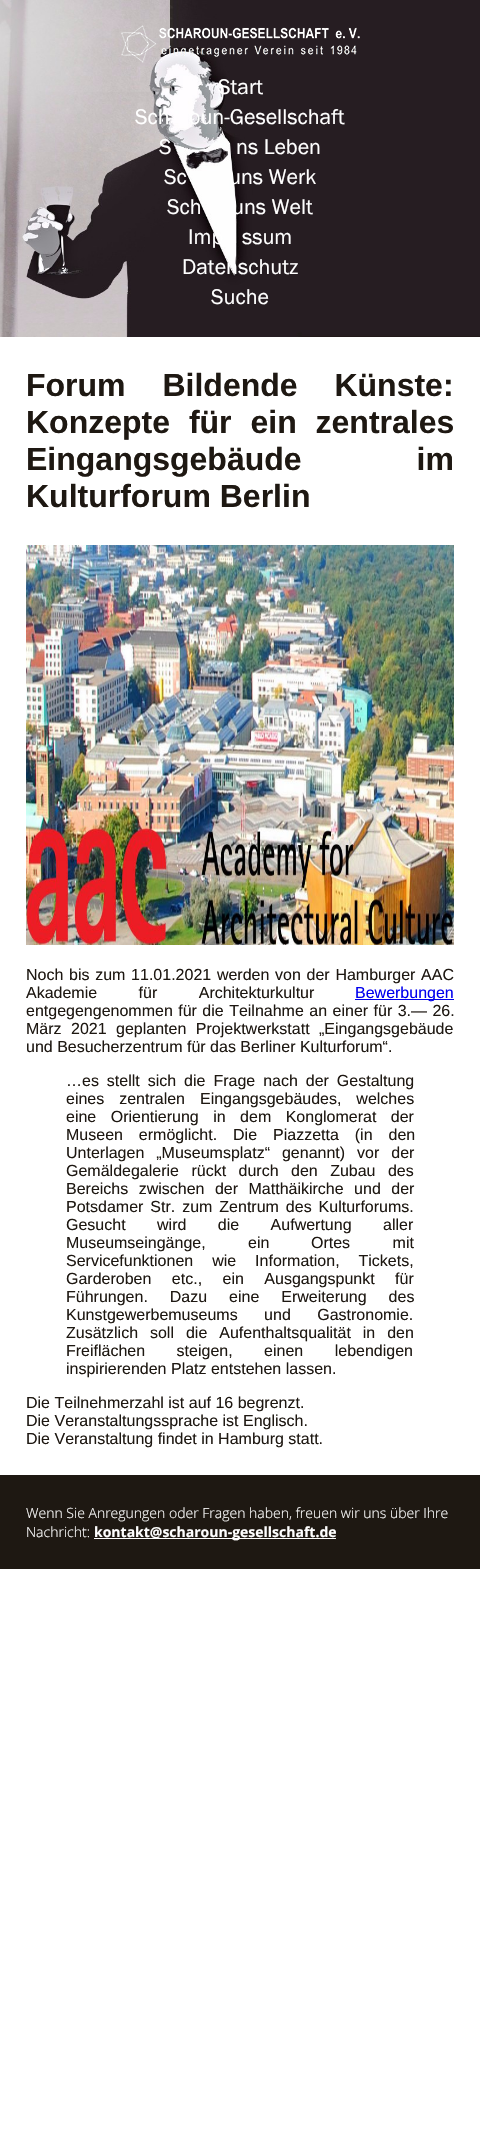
void draw(SkCanvas* c) {
SkPaint p;
p.setAntiAlias(true);
auto F=[&](const char* family, int weight, float size, bool italic = false){SkFontStyle style(weight, SkFontStyle::kNormal_Width,italic ? SkFontStyle::kItalic_Slant : SkFontStyle::kUpright_Slant);SkFont result(fontMgr->matchFamilyStyle(family, style), size);result.setSubpixel(true);return result;};
auto T=[&](const char* s, float x, float y, const SkFont& font){c->drawString(s, x, y, font, p);};
auto L=[&](const char* s, float x, float y, const SkFont& font, const SkPaint& ink, float letter, float word){std::vector<SkGlyphID> glyphs(font.countText(s, strlen(s), SkTextEncoding::kUTF8));std::vector<float> xs(glyphs.size());font.textToGlyphs(s, strlen(s), SkTextEncoding::kUTF8, glyphs);font.getXPos(glyphs, xs, x);float extra = 0;for (size_t i = 0; i < glyphs.size(); i++) {xs[i] += extra;extra += letter + word * (glyphs[i] == font.unicharToGlyph(' '));}c->drawTextBlob(SkTextBlob::MakeFromPosHGlyphs(glyphs, xs, y, font), 0, 0, ink);};
auto R=[&](float x, float y, float w, float h){c->drawRect(SkRect::MakeXYWH(x, y, w, h), p);};
auto I=[&](const char* path, float x, float y, float w, float h){auto image = SkImages::DeferredFromEncodedData(SkData::MakeFromFileName(path));c->drawImageRect(image, SkRect::MakeXYWH(x, y, w, h), SkSamplingOptions());};
c->clear(0xffffffff);
I("1.png",0,0,480,337);
I("2.png",121,25,239,38);
auto f1 = F("Franklin Gothic",400,22);
p.setColor(0xffffffff);
T("Start",218,94,f1);
T("Sch",135,124,f1);
T("oun-Gesellschaft",189,124,f1);
T("S",159,154,f1);
T("ns Leben",236,154,f1);
T("Sc",164,184,f1);
T("uns Werk",229,184,f1);
T("Sch",167,214,f1);
T("uns Welt",232,214,f1);
T("Imp",188,244,f1);
T("ssum",242,244,f1);
T("Datenschutz",182,274,f1);
T("Suche",211,304,f1);
auto f2 = F("Liberation Sans",700,32);
p.setColor(0xff1e1812);
L("Forum Bildende Künste:",26,396,f2,p,0,28);
L("Konzepte für ein zentrales",26,433,f2,p,0,10);
L("Eingangsgebäude im",26,470,f2,p,0,106);
T("Kulturforum Berlin",26,507,f2);
I("3.png",26,545,428,400);
auto f3 = F("Liberation Sans",400,16);
L("Noch bis zum 11.01.2021 werden von der Hamburger AAC",26,980,f3,p,0,1.25);
L("Akademie für Architekturkultur",26,998,f3,p,0,37);
p.setColor(0xff0000ee);
R(355,999,99,1);
T("Bewerbungen",355,998,f3);
p.setColor(0xff1e1812);
L("entgegengenommen für die Teilnahme an einer für 3.— 26.",26,1016,f3,p,0,1);
L("März 2021 geplanten Projektwerkstatt „Eingangsgebäude",26,1034,f3,p,0,5);
T("und Besucherzentrum für das Berliner Kulturforum“.",26,1052,f3);
L("…es stellt sich die Frage nach der Gestaltung",66,1086,f3,p,0,3.5);
L("eines zentralen Eingangsgebäudes, welches",66,1104,f3,p,0,10.5);
L("eine Orientierung in dem Konglomerat der",66,1122,f3,p,0,10);
L("Museen ermöglicht. Die Piazzetta (in den",66,1140,f3,p,0,11.5);
L("Unterlagen „Museumsplatz“ genannt) vor der",66,1158,f3,p,0,7.5);
L("Gemäldegalerie rückt durch den Zubau des",66,1176,f3,p,0,8);
L("Bereichs zwischen der Matthäikirche und der",66,1194,f3,p,0,6);
L("Potsdamer Str. zum Zentrum des Kulturforums.",66,1212,f3,p,0,2.5);
L("Gesucht wird die Aufwertung aller",66,1230,f3,p,0,27);
L("Museumseingänge, ein",66,1248,f3,p,0,38);
L("Ortes mit",311,1248,f3,p,0,38);
L("Servicefunktionen wie Information, Tickets,",66,1266,f3,p,0,14.5);
L("Garderoben etc., ein Ausgangspunkt für",66,1284,f3,p,0,16);
L("Führungen. Dazu eine Erweiterung des",66,1302,f3,p,0,17.5);
L("Kunstgewerbemuseums und Gastronomie.",66,1320,f3,p,0,22);
L("Zusätzlich soll die Aufenthaltsqualität in den",66,1338,f3,p,0,7.5);
L("Freiflächen steigen, einen lebendigen",66,1356,f3,p,0,27);
T("inspirierenden Platz entstehen lassen.",66,1374,f3);
T("Die Teilnehmerzahl ist auf 16 begrenzt.",26,1408,f3);
T("Die Veranstaltungssprache ist Englisch.",26,1426,f3);
T("Die Veranstaltung findet in Hamburg statt.",26,1444,f3);
R(0,1475,480,94);
auto f4 = F("Open Sans",300,14);
p.setColor(0xffffffff);
T("Wenn Sie Anregungen oder Fragen haben, freuen wir uns über Ihre",26,1518,f4);
T("Nachricht:",26,1537,f4);
R(94,1538,242,1);
auto f5 = F("Open Sans",700,14);
T("kontakt@scharoun-gesellschaft.de",94,1537,f5);
}
